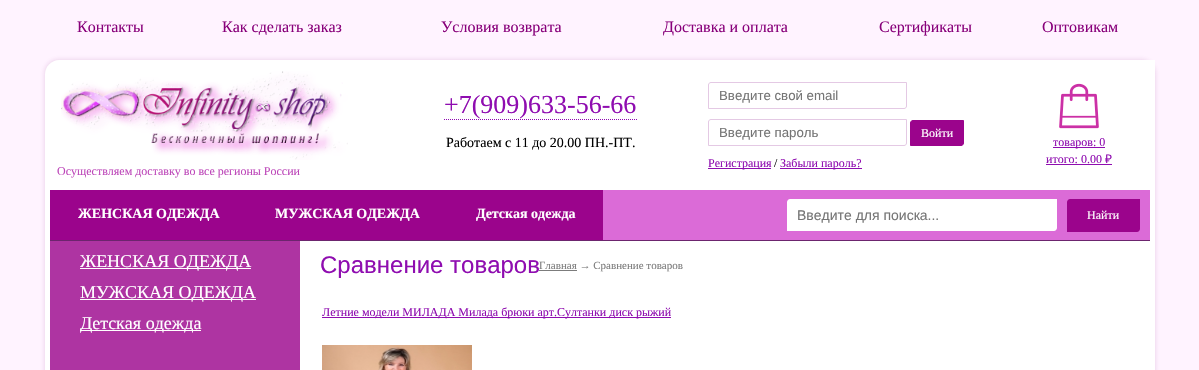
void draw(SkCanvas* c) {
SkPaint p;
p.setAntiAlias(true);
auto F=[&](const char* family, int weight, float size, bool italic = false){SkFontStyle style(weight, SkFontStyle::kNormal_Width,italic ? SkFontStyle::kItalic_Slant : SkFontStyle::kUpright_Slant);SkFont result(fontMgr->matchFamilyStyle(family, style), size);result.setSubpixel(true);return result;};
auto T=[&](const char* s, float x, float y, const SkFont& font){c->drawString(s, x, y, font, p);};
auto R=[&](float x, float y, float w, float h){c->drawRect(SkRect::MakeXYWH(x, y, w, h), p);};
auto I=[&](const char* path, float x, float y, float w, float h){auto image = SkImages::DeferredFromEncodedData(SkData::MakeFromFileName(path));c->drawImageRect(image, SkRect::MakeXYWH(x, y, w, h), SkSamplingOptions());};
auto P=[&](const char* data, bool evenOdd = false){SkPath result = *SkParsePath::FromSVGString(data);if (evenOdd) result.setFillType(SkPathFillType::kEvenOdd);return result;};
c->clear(0xfffff3ff);
auto f1 = F("Liberation Serif",400,16);
p.setColor(0xff88007a);
T("Контакты",77,32,f1);
T("Как сделать заказ",222,32,f1);
T("Условия возврата",441,32,f1);
T("Доставка и оплата",663,32,f1);
T("Сертификаты",879,32,f1);
T("Оптовикам",1042,32,f1);
p.setColor(0x307d1a77);
p.setMaskFilter(SkMaskFilter::MakeBlur(kNormal_SkBlurStyle, 2.5));
c->drawRoundRect(SkRect::MakeXYWH(45,60,1110,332),14,14,p);
p.setMaskFilter(nullptr);
p.setColor(0xffffffff);
c->drawPath(P("M59 60h1096v310c0 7.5-6.5 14-14 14h-1096v-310c0-7.5 6.5-14 14-14z"),p);
auto f2 = F("Liberation Serif",400,26);
p.setColor(0xff8f0db0);
T("+7(909)633-56-66",444,113,f2);
p.setStroke(true);
p.setStrokeWidth(1);
p.setPathEffect(SkDashPathEffect::Make({{1,1}}, 0));
c->drawPath(P("M444 119.5h193"),p);
p.setPathEffect(nullptr);
auto f3 = F("Liberation Serif",400,14);
p.setStroke(false);
p.setColor(0xff000000);
T("Работаем с 11 до 20.00 ПН.-ПТ.",446,147,f3);
p.setStroke(true);
p.setColor(0xffe4c9e4);
c->drawPath(P("M711 82.5h195.5v23.5c0 1.5-1 2.5-2.5 2.5h-195.5v-23.5c0-1.5 1-2.5 2.5-2.5z"),p);
auto f4 = F("Liberation Sans",400,13.25);
p.setStroke(false);
p.setColor(0xff757575);
T("Введите свой email",719,100,f4);
p.setStroke(true);
p.setColor(0xffe4c9e4);
c->drawPath(P("M711 119.5h195.5v23.5c0 1.5-1 2.5-2.5 2.5h-195.5v-23.5c0-1.5 1-2.5 2.5-2.5z"),p);
p.setStroke(false);
p.setColor(0xff757575);
T("Введите пароль",719,137,f4);
p.setColor(0xff9b048c);
c->drawPath(P("M913 120.5h50.5v22.5c0 1.5-1 2.5-2.5 2.5h-50.5v-22.5c0-1.5 1-2.5 2.5-2.5z"),p);
p.setStroke(true);
c->drawPath(P("M913 120.5h50.5v22.5c0 1.5-1 2.5-2.5 2.5h-50.5v-22.5c0-1.5 1-2.5 2.5-2.5z"),p);
auto f5 = F("Liberation Serif",400,12);
p.setStroke(false);
p.setColor(0xffffffff);
T("Войти",921,137,f5);
p.setColor(0xff8f0db0);
R(708,168,63,1);
T("Регистрация",708,167,f5);
p.setColor(0xff000000);
T("/",774,167,f5);
p.setColor(0xff8f0db0);
R(780,168,82,1);
T("Забыли пароль?",780,167,f5);
I("1.png",1059,83,40,46);
R(1053,147,52,1);
T("товаров: 0",1053,146,f5);
T("итого: 0.00",1046,163,f5);
R(1046,164,66,1);
auto f6 = F("Noto Sans",400,12);
T("₽",1105,163,f6);
I("2.png",61,71,287,89);
p.setColor(0xffbd47b9);
T("Осуществляем доставку во все регионы России",57,175,f5);
p.setColor(0xffdb6bd7);
R(603,190,547,50);
p.setColor(0xff9b048c);
R(50,190,553,50);
auto f7 = F("Liberation Serif",700,14);
p.setColor(0xffffffff);
T("ЖЕНСКАЯ ОДЕЖДА",78,218,f7);
T("МУЖСКАЯ ОДЕЖДА",275,218,f7);
T("Детская одежда",476,218,f7);
c->drawPath(P("M790 199h267v29c0 1.5-1.5 3-3 3h-267v-29c0-1.5 1.5-3 3-3z"),p);
auto f8 = F("Liberation Sans",400,14);
p.setColor(0xff757575);
T("Введите для поиска...",797,220,f8);
p.setColor(0xff9b048c);
c->drawPath(P("M1070 199h70v30c0 1.5-1.5 3-3 3h-70v-30c0-1.5 1.5-3 3-3z"),p);
p.setColor(0xffffffff);
T("Найти",1087,219,f5);
p.setColor(0xffae34a2);
R(50,241,250,129);
p.setColor(0xff6c256e);
R(50,240,1100,1);
p.setColor(0xffffffff);
R(80,268,171,1);
auto f9 = F("Liberation Serif",400,18);
T("ЖЕНСКАЯ ОДЕЖДА",80,267,f9);
R(80,299,176,1);
T("МУЖСКАЯ ОДЕЖДА",80,298,f9);
R(80,330,121,1);
T("Детская одежда",80,329,f9);
auto f10 = F("Liberation Sans",400,24);
p.setColor(0xff8f0db0);
T("Сравнение товаров",320,273,f10);
p.setColor(0xff7c7c7c);
R(539,270,38,1);
auto f11 = F("Liberation Serif",400,11);
T("Главная → Сравнение товаров",539,269,f11);
p.setColor(0xff8f0db0);
R(322,317,349,1);
T("Летние модели МИЛАДА Милада брюки арт.Султанки диск рыжий",322,316,f5);
I("3.png",322,345,150,25);
}
